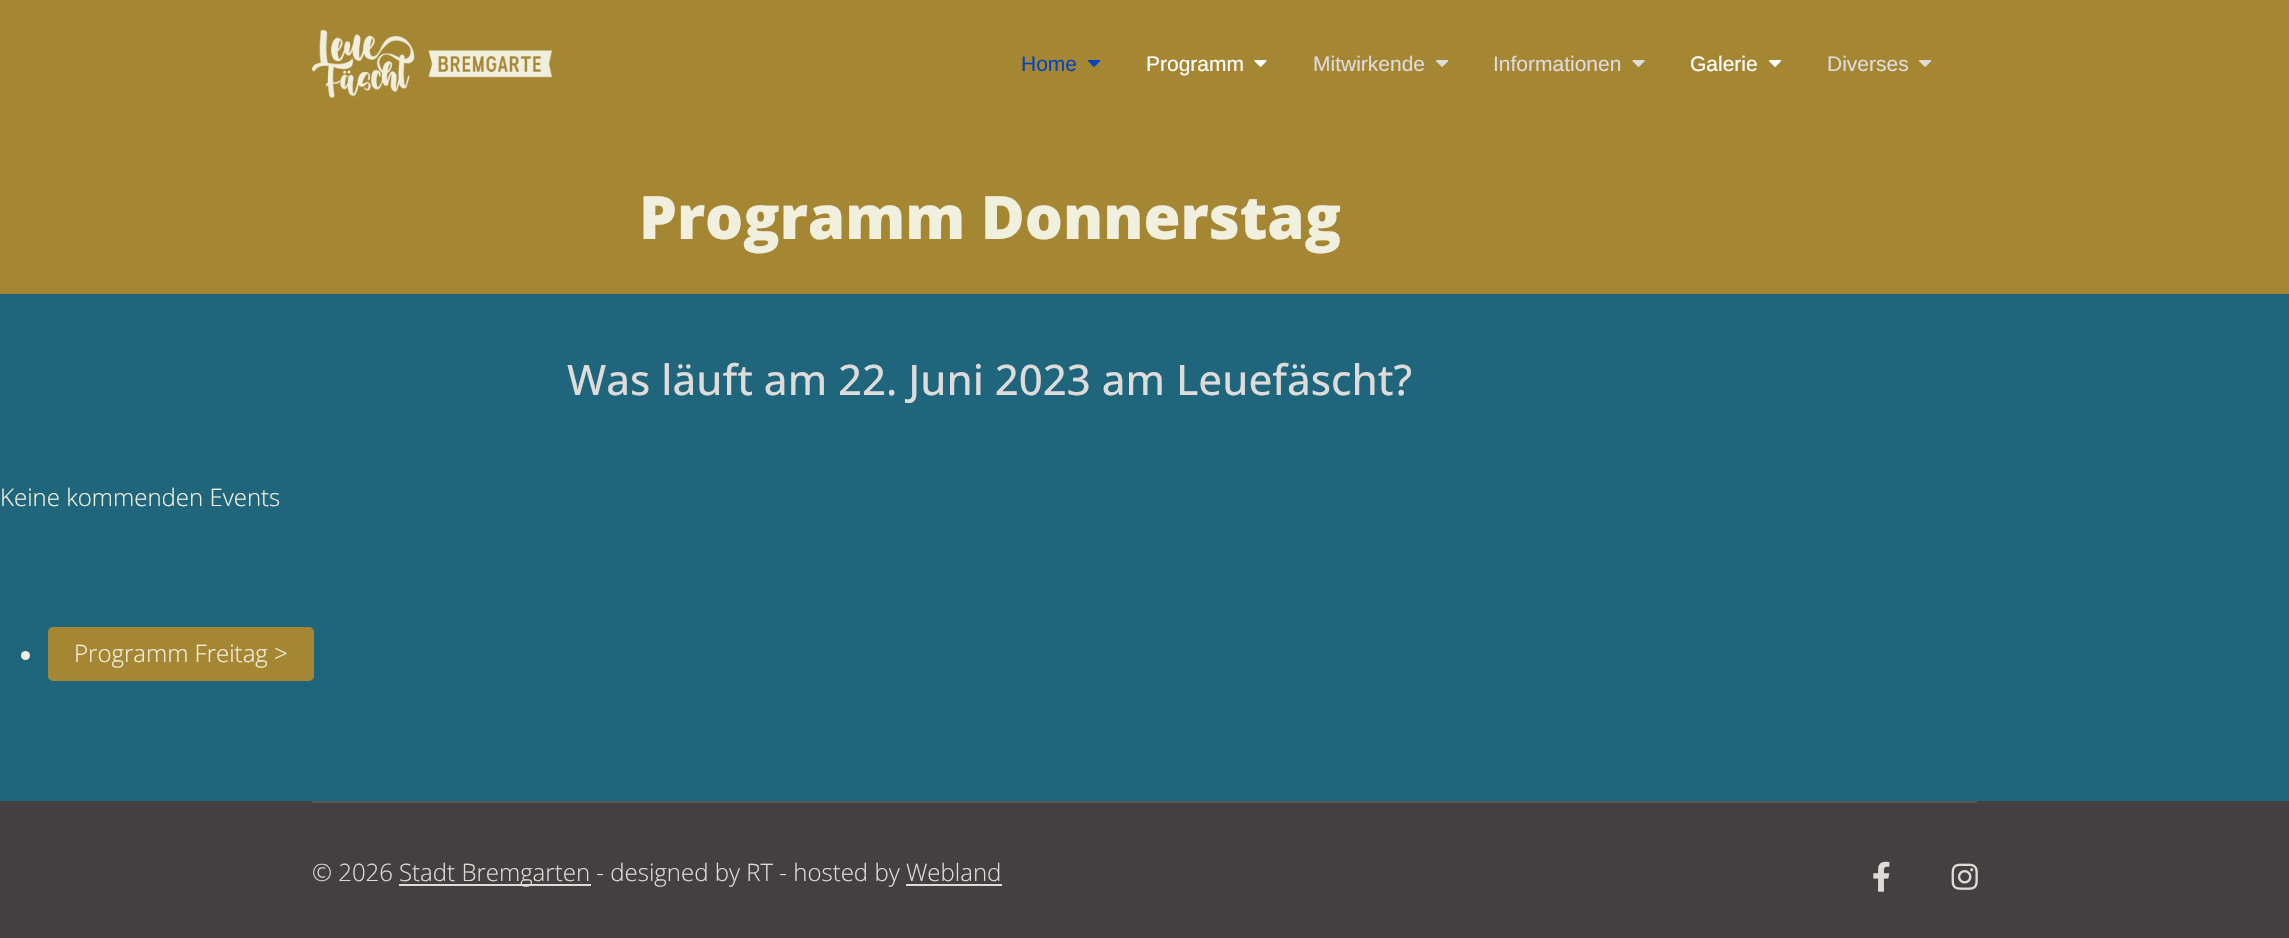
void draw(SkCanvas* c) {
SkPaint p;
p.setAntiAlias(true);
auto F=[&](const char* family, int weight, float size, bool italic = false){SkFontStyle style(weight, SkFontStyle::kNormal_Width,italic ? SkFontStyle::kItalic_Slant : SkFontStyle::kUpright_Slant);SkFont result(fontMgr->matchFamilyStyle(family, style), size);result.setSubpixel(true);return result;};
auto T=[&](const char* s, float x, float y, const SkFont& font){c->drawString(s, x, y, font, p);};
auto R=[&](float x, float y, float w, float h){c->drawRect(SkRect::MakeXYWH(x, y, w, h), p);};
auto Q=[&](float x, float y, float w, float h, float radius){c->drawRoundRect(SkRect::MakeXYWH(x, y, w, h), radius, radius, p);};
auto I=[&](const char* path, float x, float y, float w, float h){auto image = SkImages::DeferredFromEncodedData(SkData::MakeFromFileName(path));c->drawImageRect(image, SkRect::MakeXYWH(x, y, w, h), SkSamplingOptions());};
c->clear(0xff1f657b);
p.setColor(0xffa58633);
R(0,0,2289,294);
I("1.png",312,30,240,68);
auto f1 = F("Liberation Sans",400,21);
p.setColor(0xff0345bf);
T("Home",1021,71,f1);
I("2.png",1088,60,13,7);
p.setColor(0xffffffff);
T("Programm",1146,71,f1);
I("3.png",1254,60,13,7);
p.setColor(0xffdedbdb);
T("Mitwirkende",1313,71,f1);
I("4.png",1436,60,13,7);
T("Informationen",1493,71,f1);
I("5.png",1632,60,13,7);
p.setColor(0xffffffff);
T("Galerie",1690,71,f1);
I("6.png",1769,60,13,7);
p.setColor(0xffdedbdb);
T("Diverses",1827,71,f1);
I("4.png",1919,60,13,7);
auto f2 = F("Open Sans",800,60);
p.setColor(0xfff1efdd);
T("Programm Donnerstag",639,239,f2);
auto f3 = F("Open Sans",500,42);
p.setColor(0xffdedbdb);
T("Was läuft am 22. Juni 2023 am Leuefäscht?",567,395,f3);
auto f4 = F("Open Sans",300,24);
p.setColor(0xfff1efdd);
T("Keine kommenden Events",0,506,f4);
c->drawCircle(25.5,655.5,4.5,p);
p.setColor(0xffa58633);
Q(48,627,266,54,5);
p.setColor(0xfff1efdd);
T("Programm Freitag >",74,662,f4);
p.setColor(0xff424040);
R(0,801,2289,137);
p.setColor(0xff5a5858);
R(312,801,1665,2);
p.setColor(0xffdedbdb);
T("© 2026",312,881,f4);
R(399,884,192,2);
T("Stadt Bremgarten - designed by RT - hosted by Webland",399,881,f4);
R(906,884,96,2);
I("7.png",1873,861,17,31);
I("8.png",1951,863,27,27);
}
